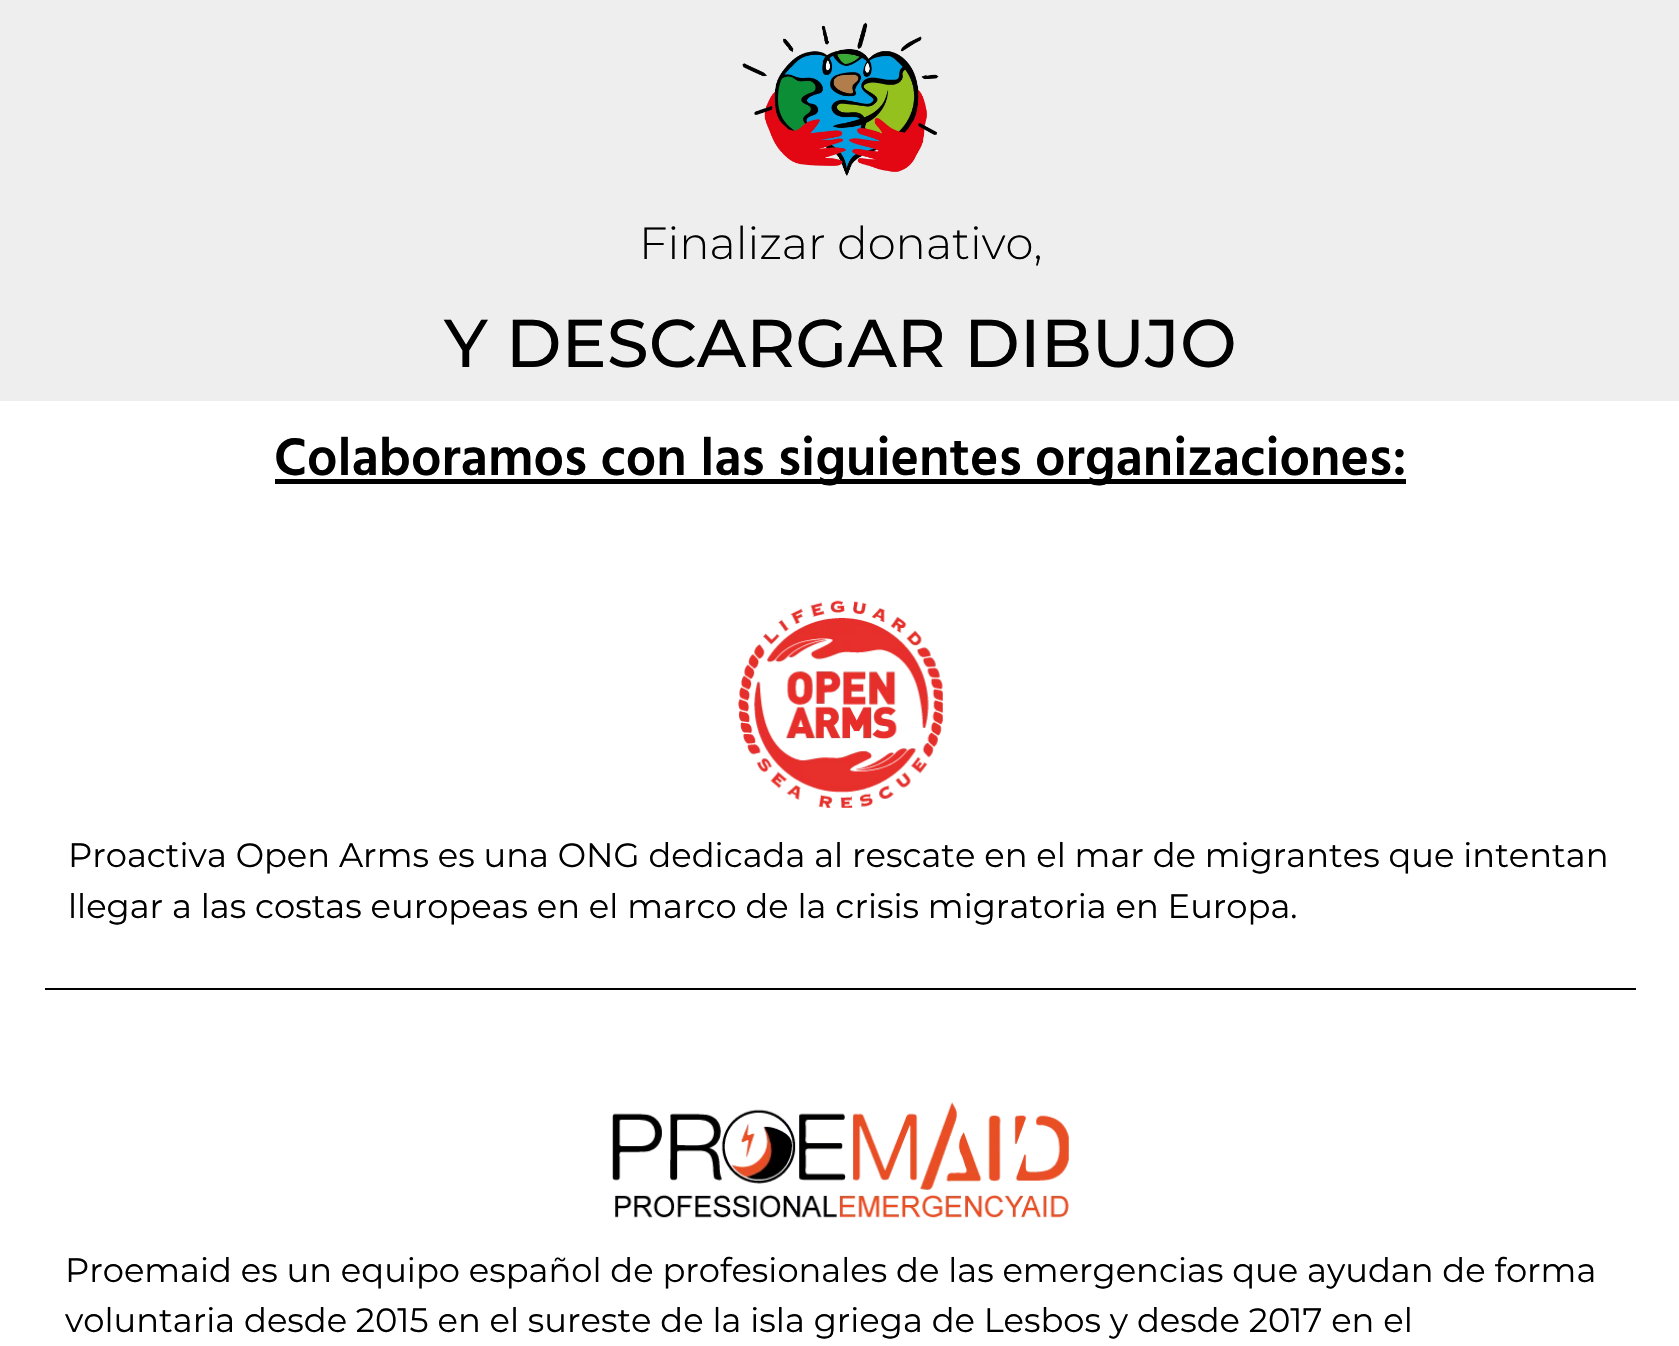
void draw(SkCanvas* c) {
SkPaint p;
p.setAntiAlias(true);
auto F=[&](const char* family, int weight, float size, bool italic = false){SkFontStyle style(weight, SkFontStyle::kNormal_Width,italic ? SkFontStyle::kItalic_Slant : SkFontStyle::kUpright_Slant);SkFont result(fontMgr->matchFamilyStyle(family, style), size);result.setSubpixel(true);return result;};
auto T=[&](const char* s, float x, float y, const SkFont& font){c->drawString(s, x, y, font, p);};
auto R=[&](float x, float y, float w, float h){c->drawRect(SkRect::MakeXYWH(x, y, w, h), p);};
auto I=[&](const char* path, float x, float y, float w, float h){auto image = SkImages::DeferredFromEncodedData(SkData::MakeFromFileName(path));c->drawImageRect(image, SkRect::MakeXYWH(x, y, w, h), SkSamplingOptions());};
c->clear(0xffffffff);
p.setColor(0xffeeeeee);
R(0,0,1679,401);
I("1.png",742,22,197,154);
auto f1 = F("Montserrat",300,45);
p.setColor(0xff000000);
T("Finalizar donativo,",639,259,f1);
auto f2 = F("Montserrat",500,67.5);
T("Y DESCARGAR DIBUJO",444,367,f2);
R(275,479,1131,5);
auto f3 = F("Hind",600,54);
T("Colaboramos con las siguientes organizaciones:",274,475,f3);
I("2.png",738,600,205,208);
auto f4 = F("Montserrat",400,33.75);
T("Proactiva Open Arms es una ONG dedicada al rescate en el mar de migrantes que intentan",68,867,f4);
T("llegar a las costas europeas en el marco de la crisis migratoria en Europa.",68,918,f4);
R(45,988,1591,2);
I("3.png",612,1102,457,116);
T("Proemaid es un equipo español de profesionales de las emergencias que ayudan de forma",65,1282,f4);
T("voluntaria desde 2015 en el sureste de la isla griega de Lesbos y desde 2017 en el",65,1332,f4);
}
